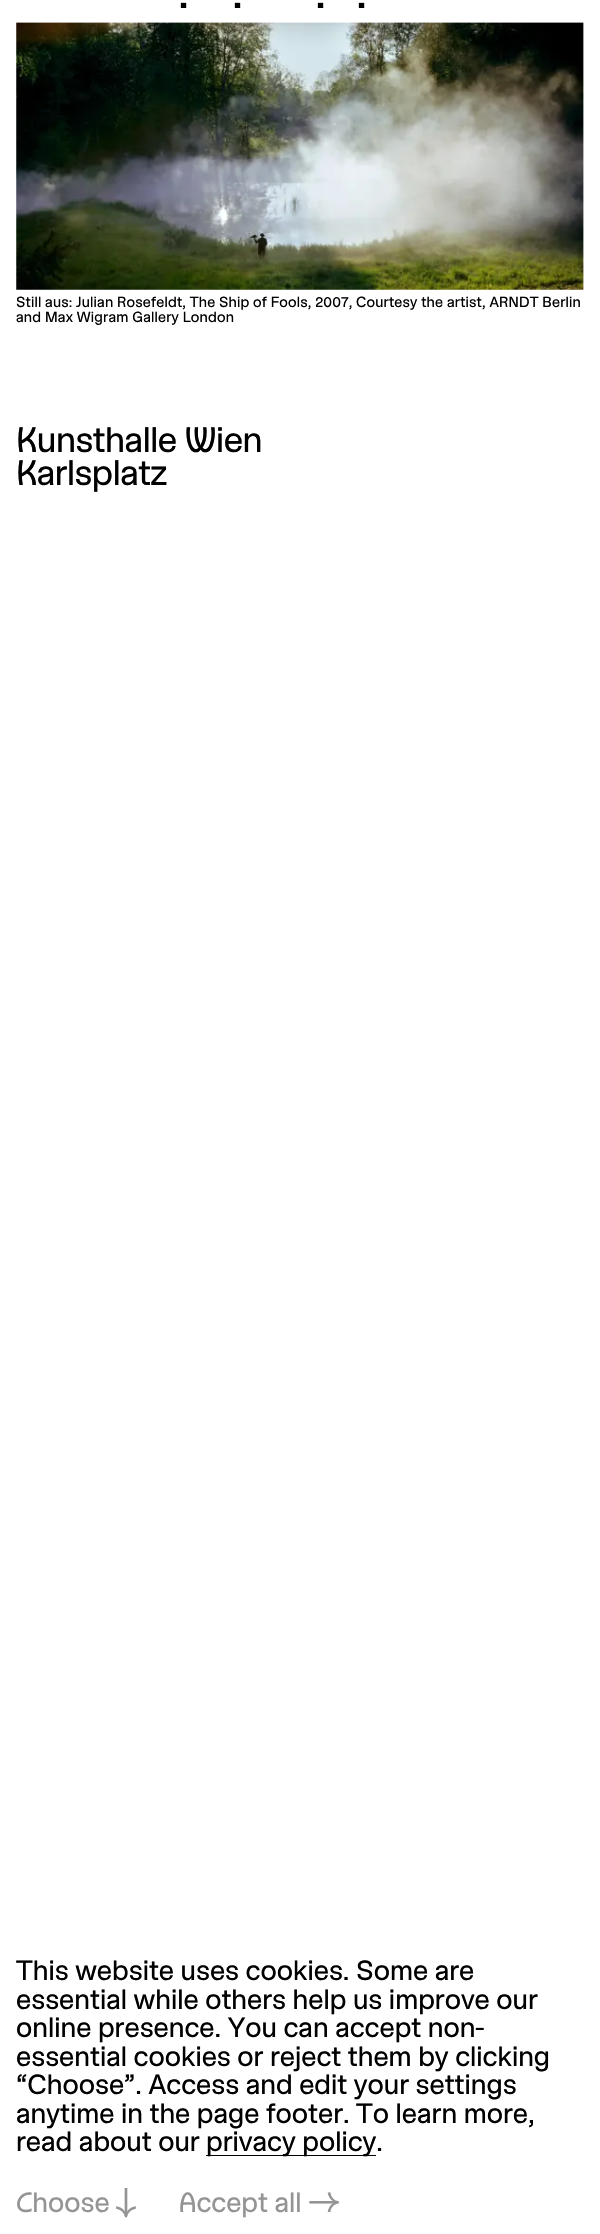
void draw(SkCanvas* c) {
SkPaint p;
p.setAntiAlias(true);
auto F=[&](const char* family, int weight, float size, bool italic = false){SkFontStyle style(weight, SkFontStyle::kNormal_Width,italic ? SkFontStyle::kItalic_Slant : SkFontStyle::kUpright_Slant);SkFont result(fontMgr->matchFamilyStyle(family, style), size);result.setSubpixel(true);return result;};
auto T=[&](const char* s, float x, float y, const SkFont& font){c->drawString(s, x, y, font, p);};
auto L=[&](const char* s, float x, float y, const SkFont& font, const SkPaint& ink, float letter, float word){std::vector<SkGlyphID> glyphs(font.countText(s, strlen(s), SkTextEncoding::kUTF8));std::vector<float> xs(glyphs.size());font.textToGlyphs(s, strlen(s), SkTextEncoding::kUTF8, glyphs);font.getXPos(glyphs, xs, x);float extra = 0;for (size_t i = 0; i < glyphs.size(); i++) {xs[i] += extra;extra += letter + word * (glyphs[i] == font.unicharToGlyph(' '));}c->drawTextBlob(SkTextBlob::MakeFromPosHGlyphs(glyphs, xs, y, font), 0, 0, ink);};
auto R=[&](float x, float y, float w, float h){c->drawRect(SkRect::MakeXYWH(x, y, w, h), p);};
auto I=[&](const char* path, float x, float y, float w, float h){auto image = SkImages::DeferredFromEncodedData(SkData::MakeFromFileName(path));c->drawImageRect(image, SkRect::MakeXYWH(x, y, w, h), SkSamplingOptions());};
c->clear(0xffffffff);
auto f1 = F("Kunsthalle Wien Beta",700,48);
p.setColor(0xff000000);
T(".",178,8,f1);
T(".",232,8,f1);
T(".",315,8,f1);
T(".",356,8,f1);
p.setColor(0xfff5f5f5);
R(16,23,568,267);
I("1.png",16,22,568,268);
auto f2 = F("Kunsthalle Wien Beta",400,15);
p.setColor(0xff000000);
L("Still aus: Julian Rosefeldt, The Ship of Fools, 2007, Courtesy the artist, ARNDT Berlin",16,307,f2,p,.2,0);
L("and Max Wigram Gallery London",16,322,f2,p,.2,0);
auto f3 = F("Kunsthalle Wien Beta",700,36.25);
L("Kunsthalle Wien",16,452,f3,p,-.4,0);
L("Karlsplatz",16,485,f3,p,-.4,0);
auto f4 = F("Kunsthalle Wien Beta",400,28.5);
T("This website uses cookies. Some are",16,1980,f4);
T("essential while others help us improve our",16,2009,f4);
T("online presence. You can accept non-",16,2037,f4);
T("essential cookies or reject them by clicking",16,2066,f4);
T("“Choose”. Access and edit your settings",16,2094,f4);
T("anytime in the page footer. To learn more,",16,2123,f4);
T("read about our",16,2151,f4);
R(206,2155,170,1);
T("privacy policy.",206,2151,f4);
auto f5 = F("Kunsthalle Wien Beta",700,28.5);
p.setColor(0xff949494);
T("Choose",16,2212,f5);
T("↓",116,2212,f5);
T("Accept all",179,2212,f5);
T("→",309,2212,f5);
}
